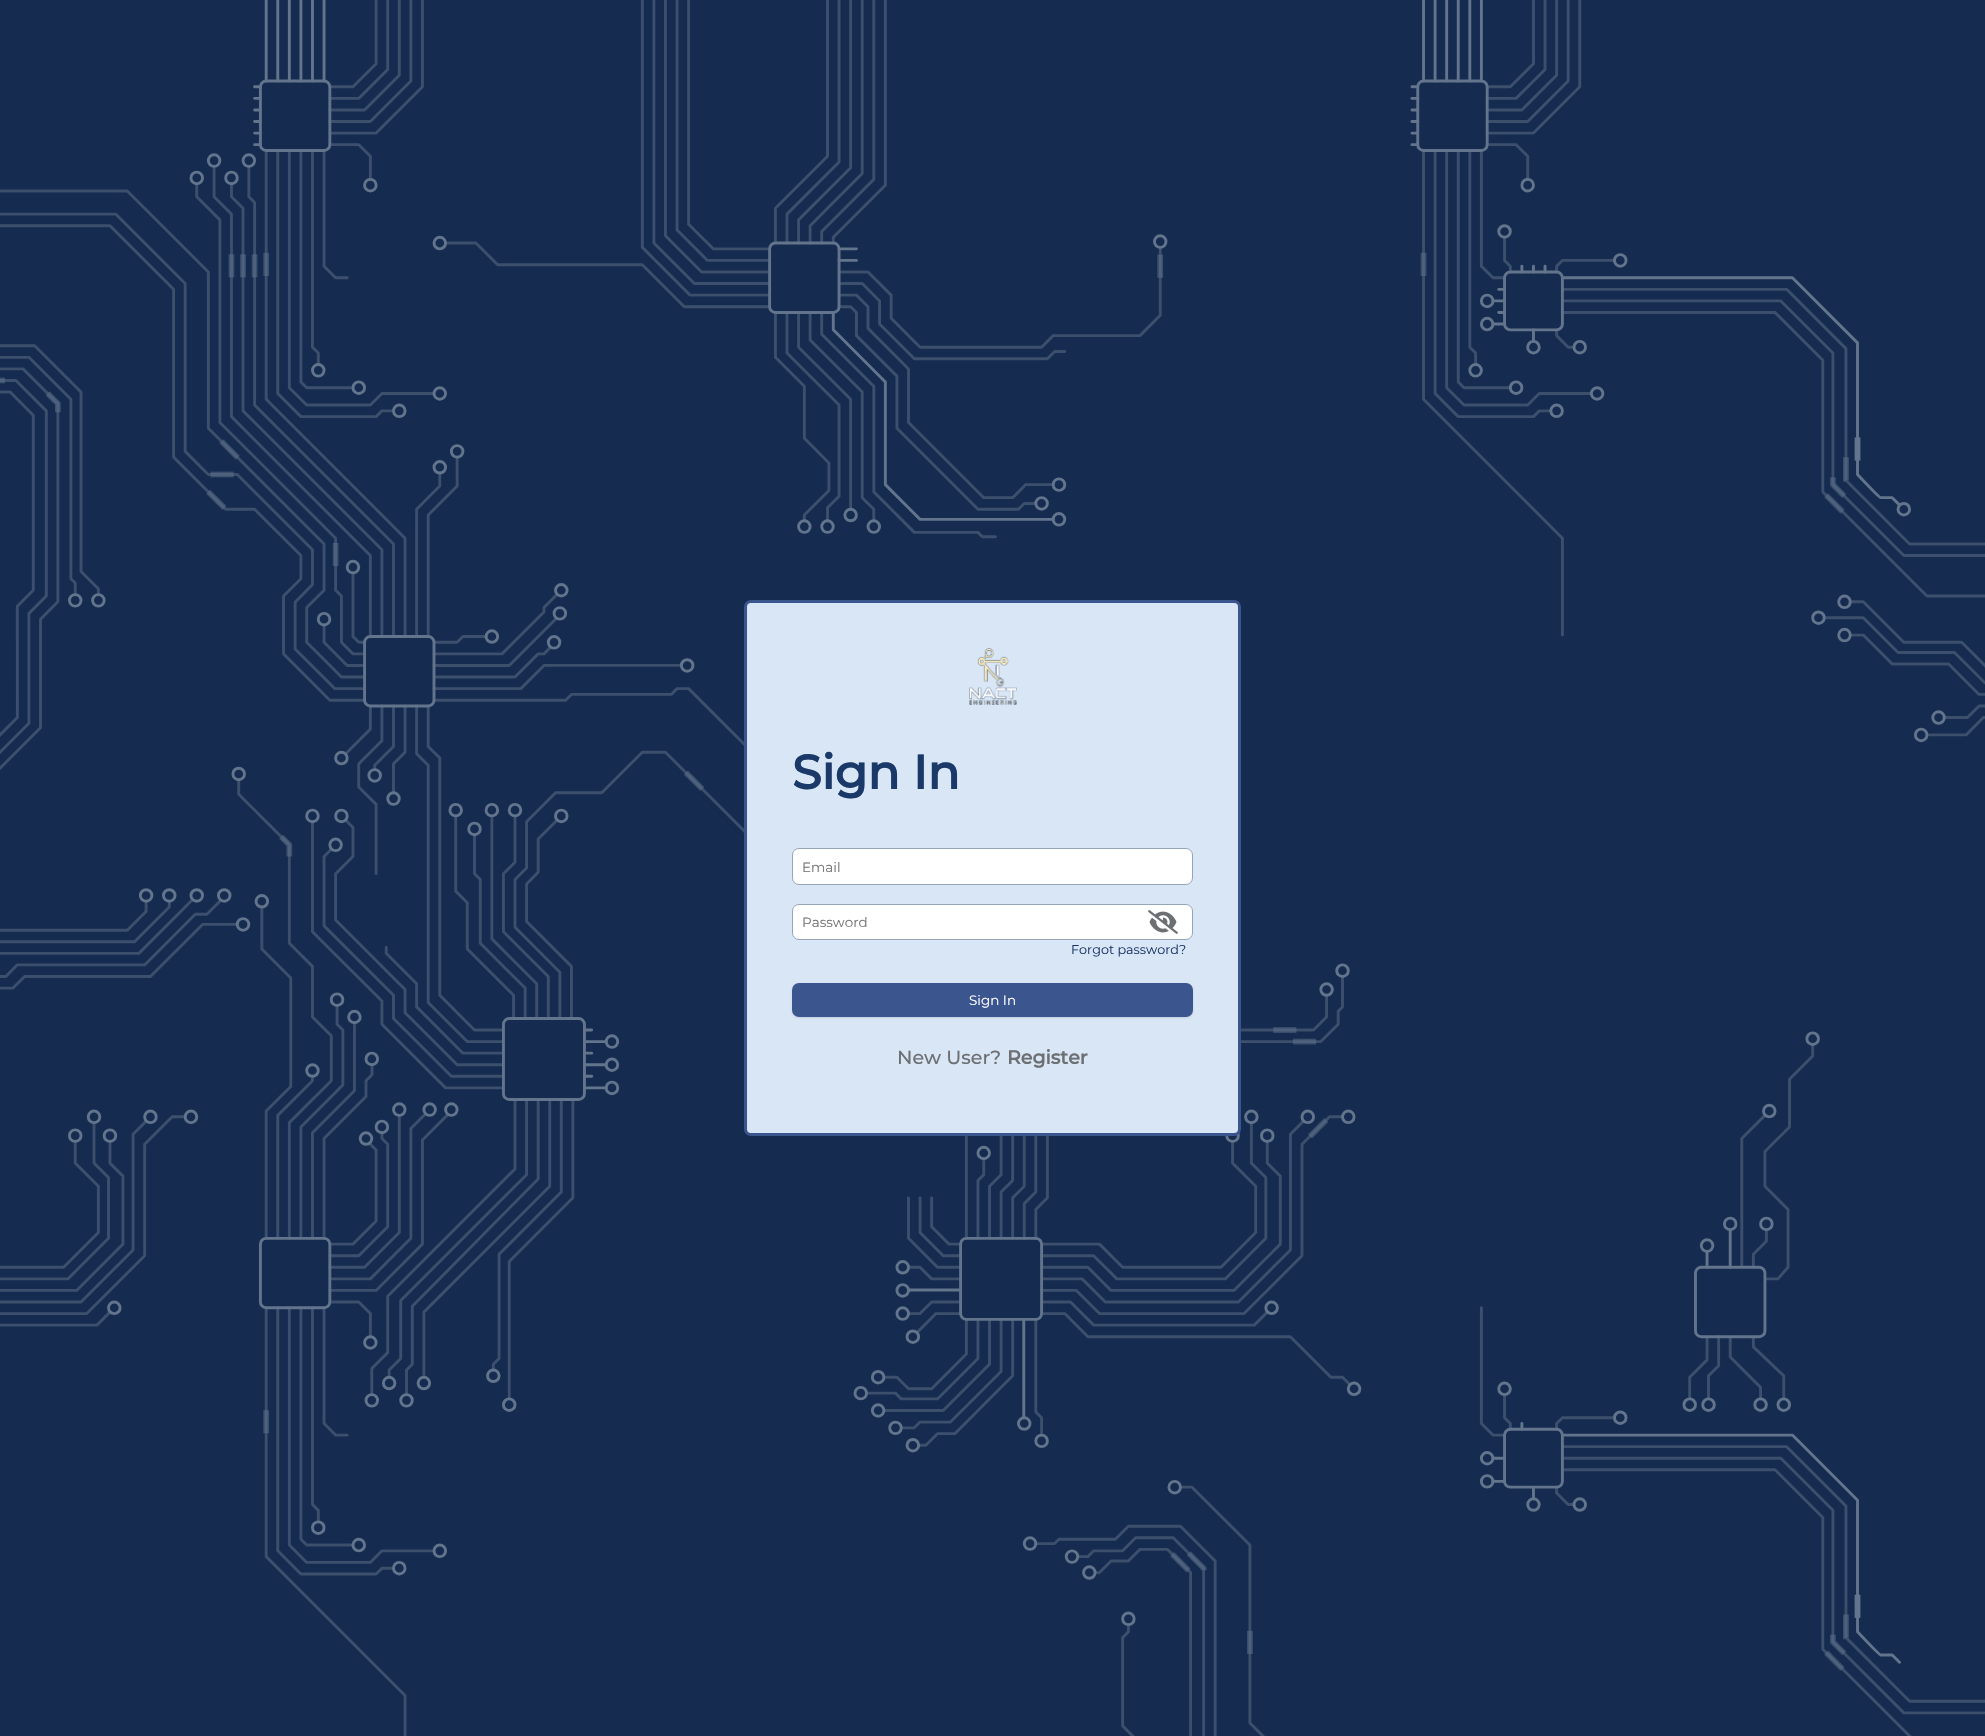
void draw(SkCanvas* c) {
SkPaint p;
p.setAntiAlias(true);
auto F=[&](const char* family, int weight, float size, bool italic = false){SkFontStyle style(weight, SkFontStyle::kNormal_Width,italic ? SkFontStyle::kItalic_Slant : SkFontStyle::kUpright_Slant);SkFont result(fontMgr->matchFamilyStyle(family, style), size);result.setSubpixel(true);return result;};
auto T=[&](const char* s, float x, float y, const SkFont& font){c->drawString(s, x, y, font, p);};
auto Q=[&](float x, float y, float w, float h, float radius){c->drawRoundRect(SkRect::MakeXYWH(x, y, w, h), radius, radius, p);};
auto I=[&](const char* path, float x, float y, float w, float h){auto image = SkImages::DeferredFromEncodedData(SkData::MakeFromFileName(path));c->drawImageRect(image, SkRect::MakeXYWH(x, y, w, h), SkSamplingOptions());};
c->clear(0xff152b4f);
I("1.png",0,0,1985,1736);
p.setColor(0xffd9e6f6);
c->drawRoundRect(SkRect::MakeXYWH(745.5,601.5,494,533),5.5,5.5,p);
p.setStroke(true);
p.setStrokeWidth(3);
p.setColor(0xff3b558f);
c->drawRoundRect(SkRect::MakeXYWH(745.5,601.5,494,533),5.5,5.5,p);
I("2.png",969,648,48,57);
auto f1 = F("Montserrat",700,47.5);
p.setStroke(false);
p.setColor(0xff1b3968);
T("Sign In",792,789,f1);
p.setColor(0xffffffff);
c->drawRoundRect(SkRect::MakeXYWH(792.5,848.5,400,36),6.5,6.5,p);
p.setStroke(true);
p.setStrokeWidth(1);
p.setColor(0xff96a5b5);
c->drawRoundRect(SkRect::MakeXYWH(792.5,848.5,400,36),6.5,6.5,p);
auto f2 = F("Montserrat",400,13.5);
p.setStroke(false);
p.setColor(0xff757575);
T("Email",802,872,f2);
p.setColor(0xffffffff);
c->drawRoundRect(SkRect::MakeXYWH(792.5,904.5,400,35),6.5,6.5,p);
p.setStroke(true);
p.setColor(0xff96a5b5);
c->drawRoundRect(SkRect::MakeXYWH(792.5,904.5,400,35),6.5,6.5,p);
p.setStroke(false);
p.setColor(0xff757575);
T("Password",802,927,f2);
I("3.png",1148,910,30,24);
auto f3 = F("Montserrat",400,12.75);
p.setColor(0xff1b3968);
T("Forgot password?",1071,954,f3);
p.setColor(0x1a000000);
p.setMaskFilter(SkMaskFilter::MakeBlur(kNormal_SkBlurStyle, 1));
c->drawRoundRect(SkRect::MakeXYWH(792,984,401,34),7,7,p);
p.setMaskFilter(nullptr);
p.setColor(0xff3b558f);
Q(792,983,401,34,7);
p.setColor(0xffffffff);
T("Sign In",969,1005,f2);
auto f4 = F("Montserrat",500,19);
p.setColor(0xff6d7073);
T("New User?",897,1064,f4);
auto f5 = F("Montserrat",700,19);
T("Register",1007,1064,f5);
}
